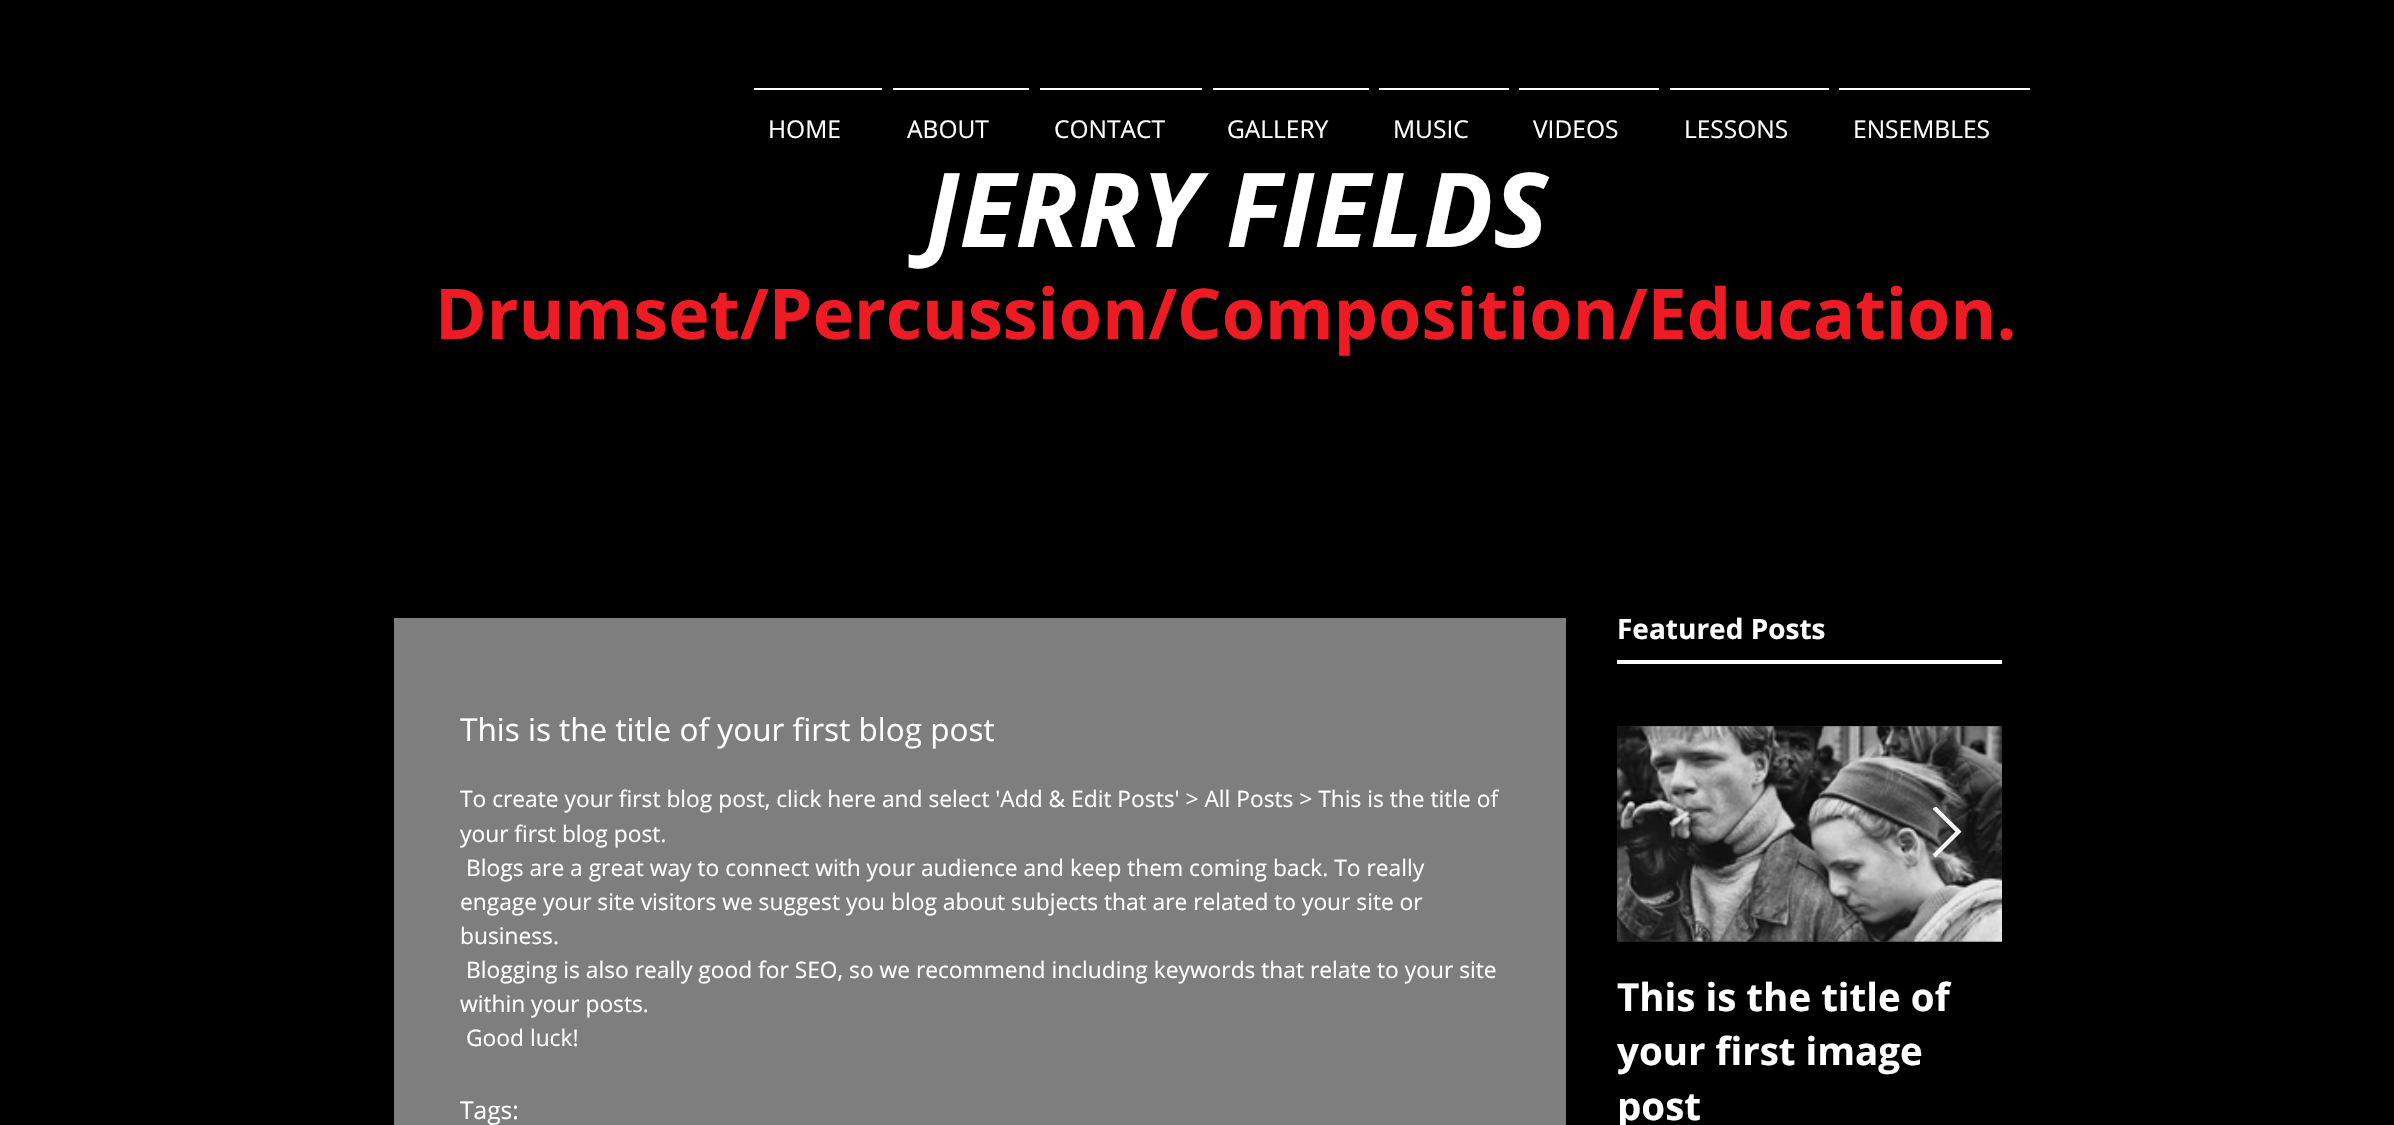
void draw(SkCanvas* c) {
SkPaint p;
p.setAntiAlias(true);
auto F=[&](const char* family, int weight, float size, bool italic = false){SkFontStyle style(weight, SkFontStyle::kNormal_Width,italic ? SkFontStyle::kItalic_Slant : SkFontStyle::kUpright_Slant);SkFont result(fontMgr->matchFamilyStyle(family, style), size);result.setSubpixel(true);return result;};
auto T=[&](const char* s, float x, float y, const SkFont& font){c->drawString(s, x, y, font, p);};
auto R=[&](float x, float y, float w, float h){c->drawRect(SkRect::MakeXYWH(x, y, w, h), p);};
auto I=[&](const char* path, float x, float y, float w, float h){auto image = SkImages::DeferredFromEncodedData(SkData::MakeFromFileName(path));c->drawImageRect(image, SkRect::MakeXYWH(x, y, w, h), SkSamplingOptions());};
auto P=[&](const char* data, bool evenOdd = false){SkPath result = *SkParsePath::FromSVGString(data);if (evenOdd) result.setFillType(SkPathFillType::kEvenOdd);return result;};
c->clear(0xff000000);
p.setColor(0xffffffff);
R(754,88,128,2);
auto f1 = F("Open Sans",400,24.5);
T("HOME",768,138,f1);
R(893,88,136,2);
T("ABOUT",907,138,f1);
R(1040,88,162,2);
T("CONTACT",1054,138,f1);
R(1213,88,156,2);
T("GALLERY",1227,138,f1);
R(1379,88,130,2);
T("MUSIC",1393,138,f1);
R(1519,88,140,2);
T("VIDEOS",1533,138,f1);
R(1670,88,159,2);
T("LESSONS",1684,138,f1);
R(1839,88,191,2);
T("ENSEMBLES",1853,138,f1);
auto f2 = F("Open Sans",700,103.25,true);
T("JERRY FIELDS",925,247,f2);
auto f3 = F("Open Sans",700,70);
p.setColor(0xffed1c24);
T("Drumset/Percussion/Composition/Education.",435,339,f3);
auto f4 = F("Open Sans",700,28);
p.setColor(0xffffffff);
T("Featured Posts",1617,639,f4);
R(1617,660,385,4);
p.setColor(0xff7f7e7e);
R(394,618,1172,507);
auto f5 = F("Open Sans",400,31.5);
p.setColor(0xffffffff);
T("This is the title of your first blog post",460,741,f5);
auto f6 = F("Open Sans",400,22.75);
T("To create your first blog post, click here and select 'Add & Edit Posts' > All Posts > This is the title of",460,807,f6);
T("your first blog post.",460,842,f6);
T("Blogs are a great way to connect with your audience and keep them coming back. To really",466,876,f6);
T("engage your site visitors we suggest you blog about subjects that are related to your site or",460,910,f6);
T("business.",460,944,f6);
T("Blogging is also really good for SEO, so we recommend including keywords that relate to your site",466,978,f6);
T("within your posts.",460,1012,f6);
T("Good luck!",466,1046,f6);
T("Tags:",460,1119,f1);
I("1.png",1617,726,385,216);
I("2.png",1617,726,385,216);
p.setColor(0xe6ffffff);
c->drawPath(P("M1934 809l2-2l25 25l-25 24l-2-2l22-22z"),p);
c->save();
c->clipRect(SkRect::MakeXYWH(1930,807,32,54));
p.setStroke(true);
p.setStrokeWidth(1.4);
c->drawPath(P("M1933.5 809l2-2l25 24.5l-25 25l-2-2l23-23z"),p);
c->restore();
auto f7 = F("Open Sans",700,38.5);
p.setStroke(false);
p.setColor(0xffffffff);
T("This is the title of",1617,1011,f7);
T("your first image",1617,1065,f7);
T("post",1617,1120,f7);
}
